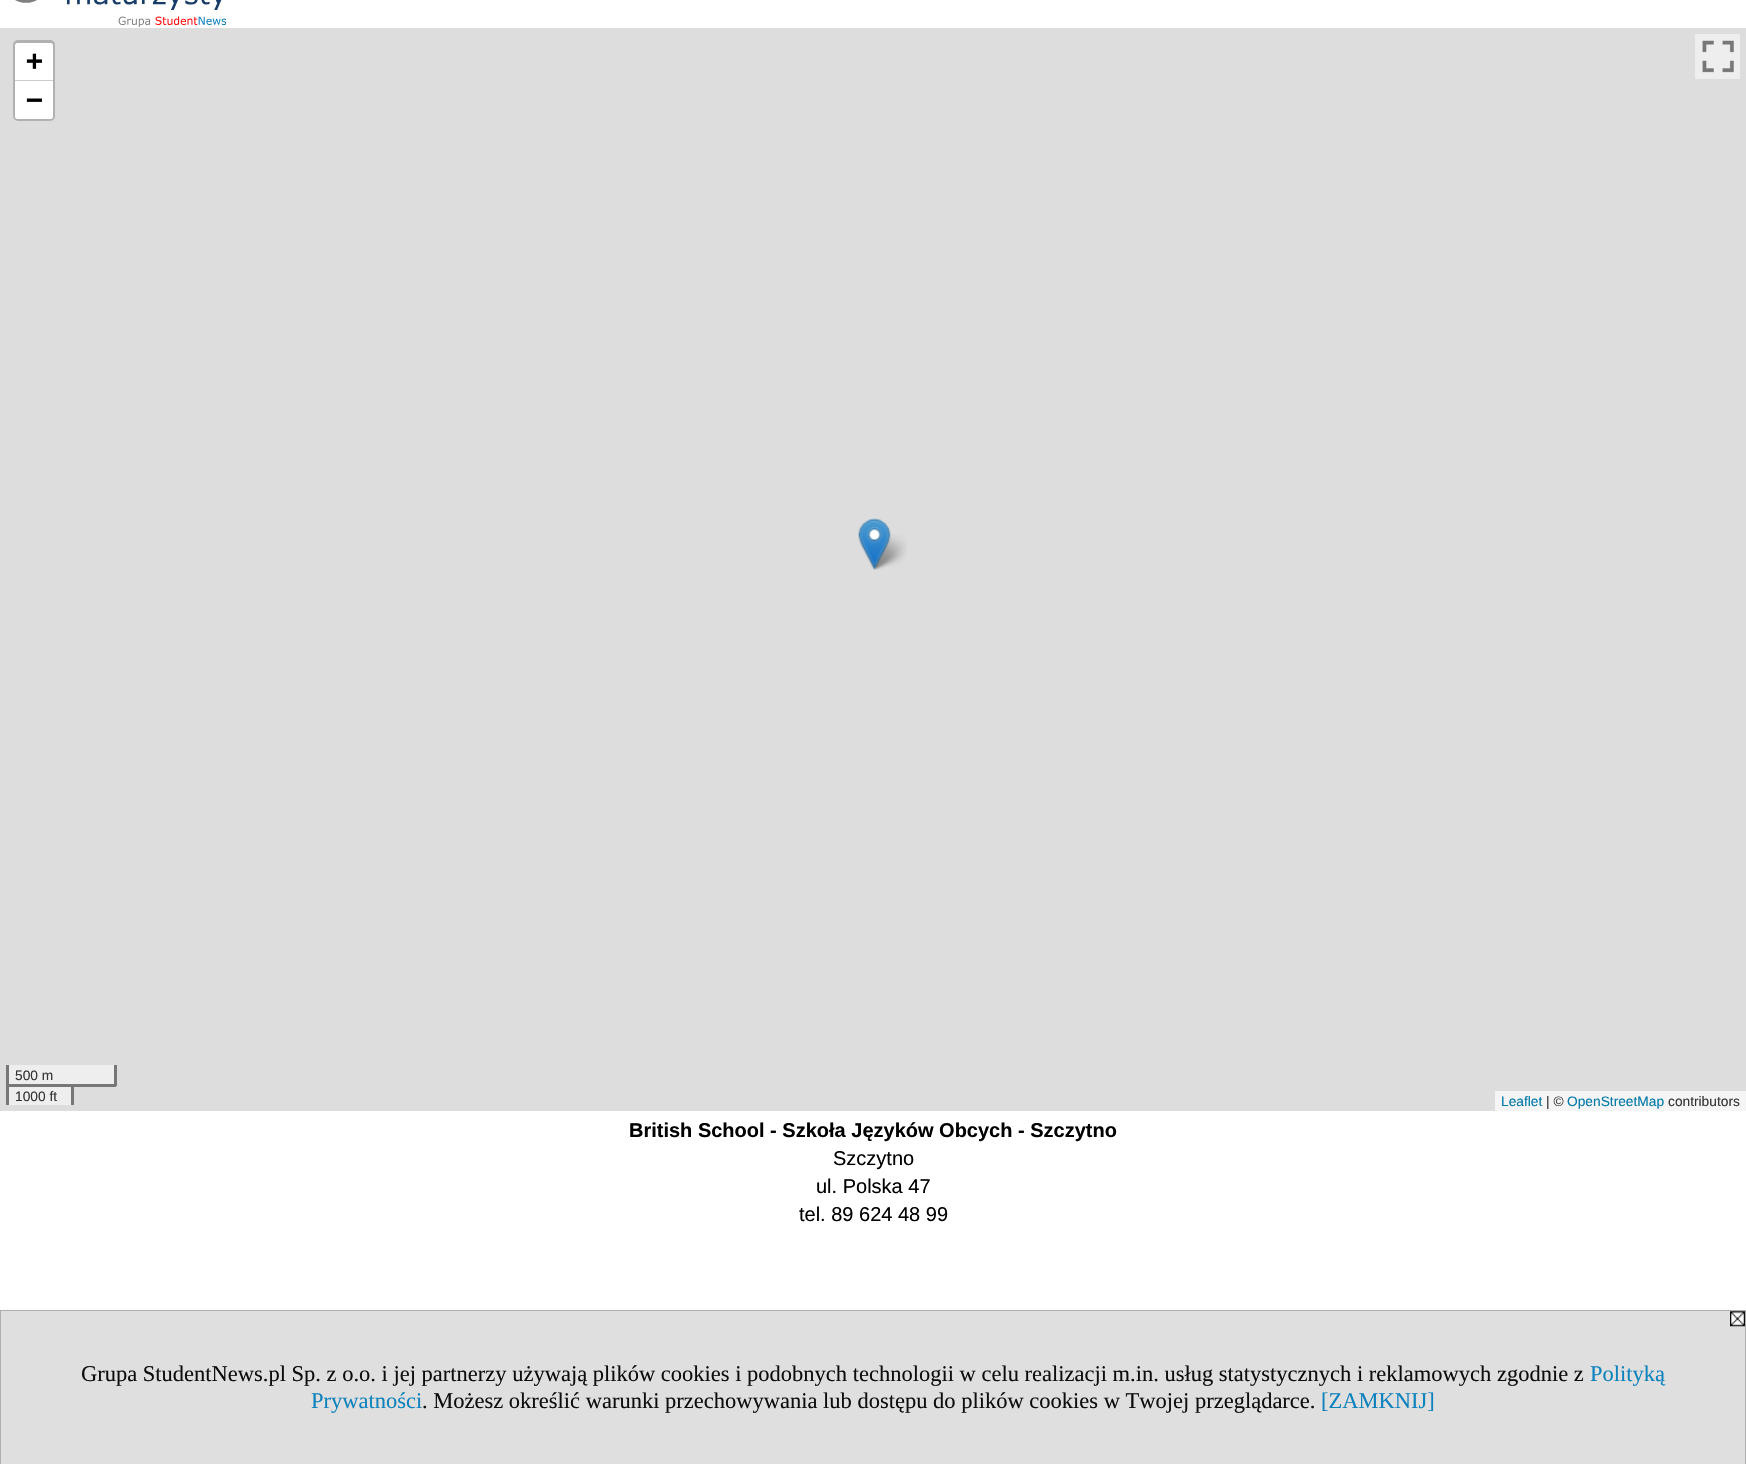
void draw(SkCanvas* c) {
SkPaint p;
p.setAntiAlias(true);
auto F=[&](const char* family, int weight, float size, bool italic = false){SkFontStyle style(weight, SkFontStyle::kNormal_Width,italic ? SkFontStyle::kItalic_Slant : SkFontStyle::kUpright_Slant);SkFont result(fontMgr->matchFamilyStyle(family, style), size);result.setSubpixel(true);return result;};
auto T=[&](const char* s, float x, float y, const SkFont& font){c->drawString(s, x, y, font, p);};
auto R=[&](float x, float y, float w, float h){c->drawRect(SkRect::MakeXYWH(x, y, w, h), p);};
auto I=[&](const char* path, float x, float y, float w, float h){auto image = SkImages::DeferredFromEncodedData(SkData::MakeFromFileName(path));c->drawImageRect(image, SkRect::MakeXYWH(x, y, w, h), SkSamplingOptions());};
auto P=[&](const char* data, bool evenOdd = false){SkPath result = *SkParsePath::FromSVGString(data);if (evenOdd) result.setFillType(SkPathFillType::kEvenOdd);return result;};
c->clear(0xffffffff);
I("1.png",15,0,211,27);
p.setColor(0xffdddddd);
R(0,28,1746,1083);
p.setColor(0xffeeeeee);
R(9,1087,62,18);
R(1695,34,45,45);
I("2.png",1702,40,32,33);
p.setStroke(true);
p.setStrokeWidth(3);
p.setColor(0xffb1b1b1);
c->drawRoundRect(SkRect::MakeXYWH(14.5,41.5,39,78),3.5,3.5,p);
p.setStroke(false);
p.setColor(0xffffffff);
c->drawPath(P("M17.5 43h33c1.5 0 2.5 1 2.5 2.5v35.5h-38v-35.5c0-1.5 1-2.5 2.5-2.5z"),p);
p.setColor(0xffcccccc);
R(15,80,38,1);
auto f1 = F("DejaVu Sans Mono",700,28);
p.setColor(0xff000000);
T("+",26,70,f1);
p.setColor(0xffffffff);
c->drawPath(P("M15 81h38v35.5c0 1.5-1 2.5-2.5 2.5h-33c-1.5 0-2.5-1-2.5-2.5z"),p);
p.setColor(0xff000000);
T("−",26,109,f1);
p.setColor(0xffeeeeee);
R(9,1065,105,19);
p.setColor(0xff777777);
R(114,1065,3,21);
R(74,1084,42,3);
R(6,1065,3,21);
auto f2 = F("Liberation Sans",400,13.75);
p.setColor(0xff333333);
T("500 m",15,1080,f2);
p.setColor(0xff777777);
R(6,1084,68,3);
R(71,1084,3,21);
R(6,1084,3,21);
p.setColor(0xff333333);
T("1000 ft",15,1101,f2);
p.setColor(0xfff5f5f5);
R(1495,1091,251,20);
p.setColor(0xff0078a8);
T("Leaflet",1501,1106,f2);
p.setColor(0xff333333);
T("| ©",1546,1106,f2);
p.setColor(0xff0078a8);
T("OpenStreetMap",1567,1106,f2);
p.setColor(0xff333333);
T("contributors",1668,1106,f2);
I("4.png",870,534,37,36);
I("3.png",858,518,33,52);
auto f3 = F("Liberation Sans",700,20);
p.setColor(0xff000000);
T("British School - Szkoła Języków Obcych - Szczytno",629,1137,f3);
auto f4 = F("Liberation Sans",400,20);
T("Szczytno",833,1165,f4);
T("ul. Polska 47",816,1193,f4);
T("tel. 89 624 48 99",799,1221,f4);
p.setColor(0xffdfdfdf);
c->drawRect(SkRect::MakeXYWH(.5,1310.5,1745,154),p);
p.setStroke(true);
p.setStrokeWidth(1);
p.setColor(0xffaeaeae);
c->drawRect(SkRect::MakeXYWH(.5,1310.5,1745,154),p);
I("5.png",1730,1311,15,16);
auto f5 = F("Liberation Serif",400,22.5);
p.setStroke(false);
p.setColor(0xff0d0d0d);
T("Grupa StudentNews.pl Sp. z o.o. i jej partnerzy używają plików cookies i podobnych technologii w celu realizacji m.in. usług statystycznych i reklamowych zgodnie z",81,1381,f5);
p.setColor(0xff0d82bd);
T("Polityką",1590,1381,f5);
T("Prywatności",311,1408,f5);
p.setColor(0xff0d0d0d);
T(". Możesz określić warunki przechowywania lub dostępu do plików cookies w Twojej przeglądarce.",422,1408,f5);
p.setColor(0xff0d82bd);
T("[ZAMKNIJ]",1321,1408,f5);
}
